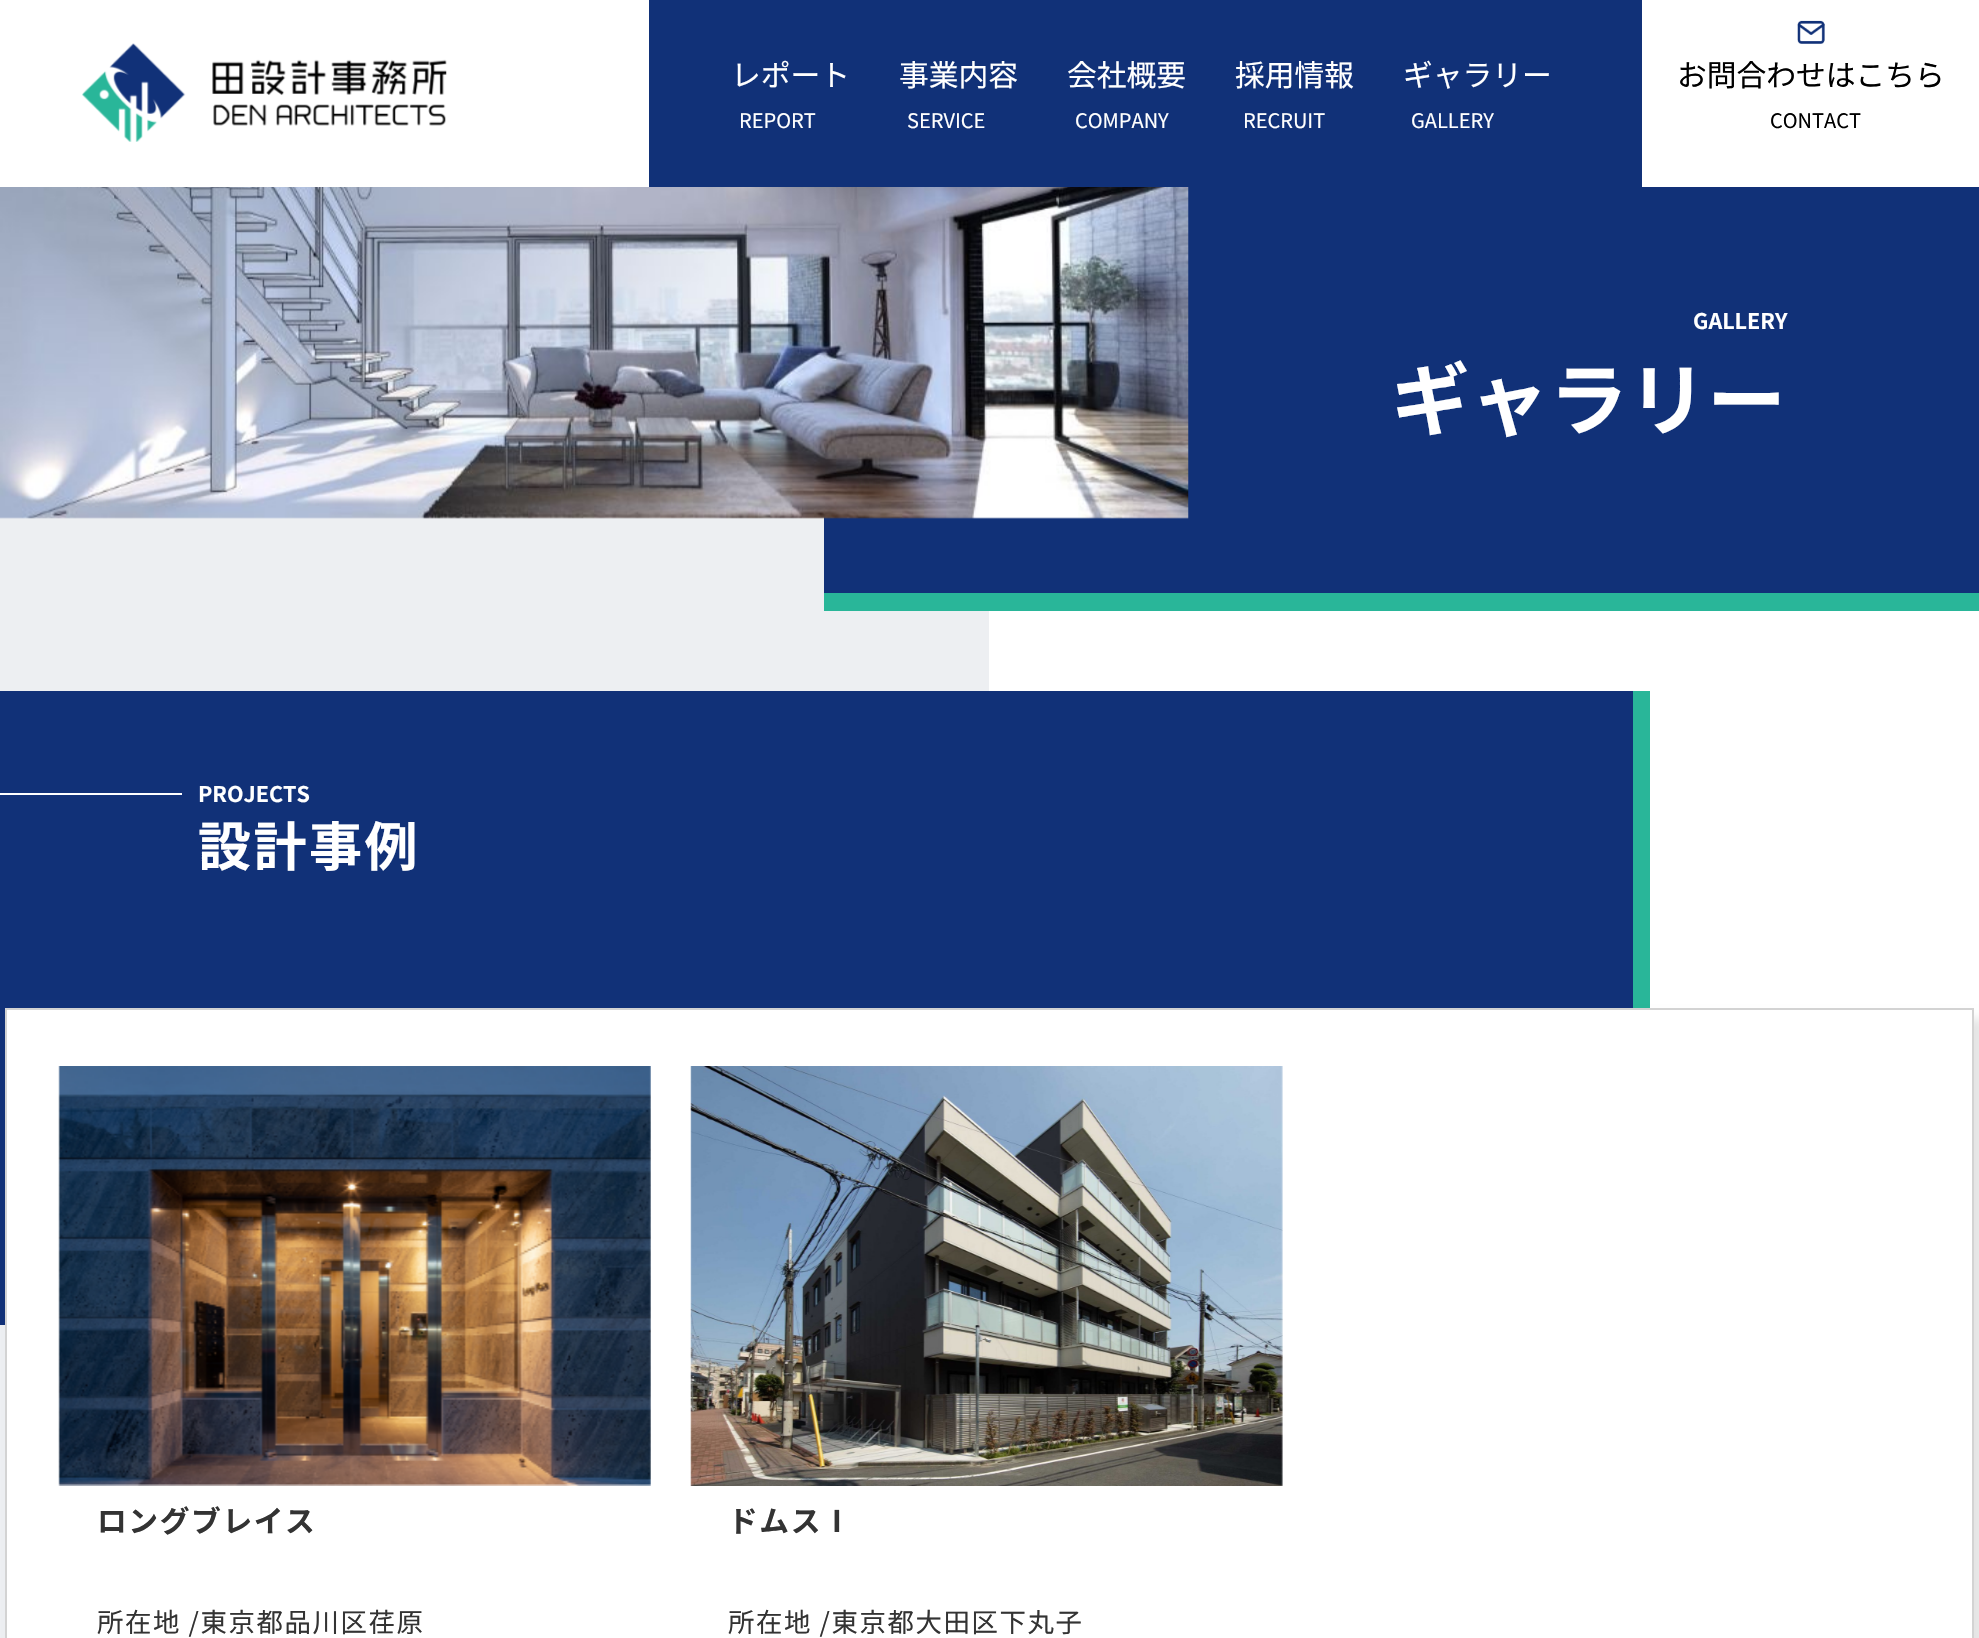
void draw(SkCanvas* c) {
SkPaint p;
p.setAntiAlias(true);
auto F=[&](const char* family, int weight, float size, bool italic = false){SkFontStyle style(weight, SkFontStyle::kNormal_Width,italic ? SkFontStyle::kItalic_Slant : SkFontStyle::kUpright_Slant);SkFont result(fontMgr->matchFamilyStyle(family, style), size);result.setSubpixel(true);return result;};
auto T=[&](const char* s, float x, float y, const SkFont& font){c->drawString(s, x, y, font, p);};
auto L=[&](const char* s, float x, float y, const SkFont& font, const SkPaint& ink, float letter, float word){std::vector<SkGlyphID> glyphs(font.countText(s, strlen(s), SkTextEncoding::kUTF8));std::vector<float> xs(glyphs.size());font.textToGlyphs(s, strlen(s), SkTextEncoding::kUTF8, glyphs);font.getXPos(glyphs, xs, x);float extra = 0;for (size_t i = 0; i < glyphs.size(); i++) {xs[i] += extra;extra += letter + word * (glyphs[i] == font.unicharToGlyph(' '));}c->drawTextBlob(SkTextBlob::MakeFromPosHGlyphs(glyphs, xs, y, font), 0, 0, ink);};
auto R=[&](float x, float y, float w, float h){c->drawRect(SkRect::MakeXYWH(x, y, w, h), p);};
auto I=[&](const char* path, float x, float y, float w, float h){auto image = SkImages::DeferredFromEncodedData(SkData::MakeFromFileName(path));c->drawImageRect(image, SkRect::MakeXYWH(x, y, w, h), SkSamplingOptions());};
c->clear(0xffffffff);
I("1.png",82,43,365,99);
p.setColor(0xff113178);
R(649,0,993,187);
auto f1 = F("Noto Sans JP",400,29.75);
p.setColor(0xffffffff);
T("レポート",731,86,f1);
auto f2 = F("Noto Sans JP",400,20);
T("REPORT",739,128,f2);
T("事業内容",899,86,f1);
T("SERVICE",907,128,f2);
T("会社概要",1067,86,f1);
T("COMPANY",1075,128,f2);
T("採用情報",1235,86,f1);
T("RECRUIT",1243,128,f2);
T("ギャラリー",1403,86,f1);
T("GALLERY",1411,128,f2);
I("2.png",1797,20,28,24);
p.setColor(0xff000000);
T("お問合わせはこちら",1677,86,f1);
T("CONTACT",1770,128,f2);
{
const SkColor colors[] = {0xffedeff2,0xffedeff2,0xffffffff,0xffffffff};
const float stops[] = {0,.5,.5,1};
const SkPoint ends[] = {{0,533}, {1979,533}};
p.setShader(SkGradientShader::MakeLinear(ends, colors, stops, 4, SkTileMode::kClamp));
p.setAlpha(255);
}
R(0,517,990,549);
p.setShader(nullptr);
p.setColor(0xff113178);
R(824,187,1155,406);
I("3.png",0,187,1189,332);
p.setColor(0xff29b699);
R(824,593,1155,18);
auto f3 = F("Noto Sans JP",700,21.5);
p.setColor(0xffffffff);
T("GALLERY",1693,329,f3);
auto f4 = F("Noto Sans JP",700,79);
T("ギャラリー",1391,429,f4);
{
const SkColor colors[] = {0xffedeff2,0xffedeff2,0x00edeff2,0x00000000};
const float stops[] = {0,.5,.5,1};
const SkPoint ends[] = {{0,1306}, {1979,1306}};
p.setShader(SkGradientShader::MakeLinear(ends, colors, stops, 4, SkTileMode::kClamp));
p.setAlpha(255);
}
R(0,1066,990,572);
p.setShader(nullptr);
p.setColor(0xff113178);
R(0,691,1633,634);
p.setColor(0xff29b699);
R(1633,691,17,317);
p.setColor(0xffffffff);
R(0,793,182,2);
T("PROJECTS",198,802,f3);
auto f5 = F("Noto Sans JP",700,53);
L("設計事例",198,866,f5,p,2.5,0);
p.setColor(0x1a000000);
p.setMaskFilter(SkMaskFilter::MakeBlur(kNormal_SkBlurStyle, 5));
c->drawRect(SkRect::MakeXYWH(16,1019,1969,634),p);
p.setMaskFilter(nullptr);
p.setColor(0xffffffff);
c->drawRect(SkRect::MakeXYWH(6,1009,1967,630),p);
p.setStroke(true);
p.setStrokeWidth(2);
p.setColor(0xffd3d3d3);
c->drawRect(SkRect::MakeXYWH(6,1009,1967,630),p);
I("4.png",58,1066,593,420);
auto f6 = F("Noto Sans JP",700,29.75);
p.setStroke(false);
p.setColor(0xff333333);
L("ロングブレイス",97,1532,f6,p,1.6,0);
auto f7 = F("Noto Sans JP",400,26.4);
L("所在地 /東京都品川区荏原",97,1632,f7,p,1.6,0);
I("5.png",690,1066,593,420);
auto f8 = F("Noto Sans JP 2",700,29.75);
L("ドムスⅠ",728,1532,f8,p,1.6,0);
L("所在地 /東京都大田区下丸子",728,1632,f7,p,1.6,0);
}
